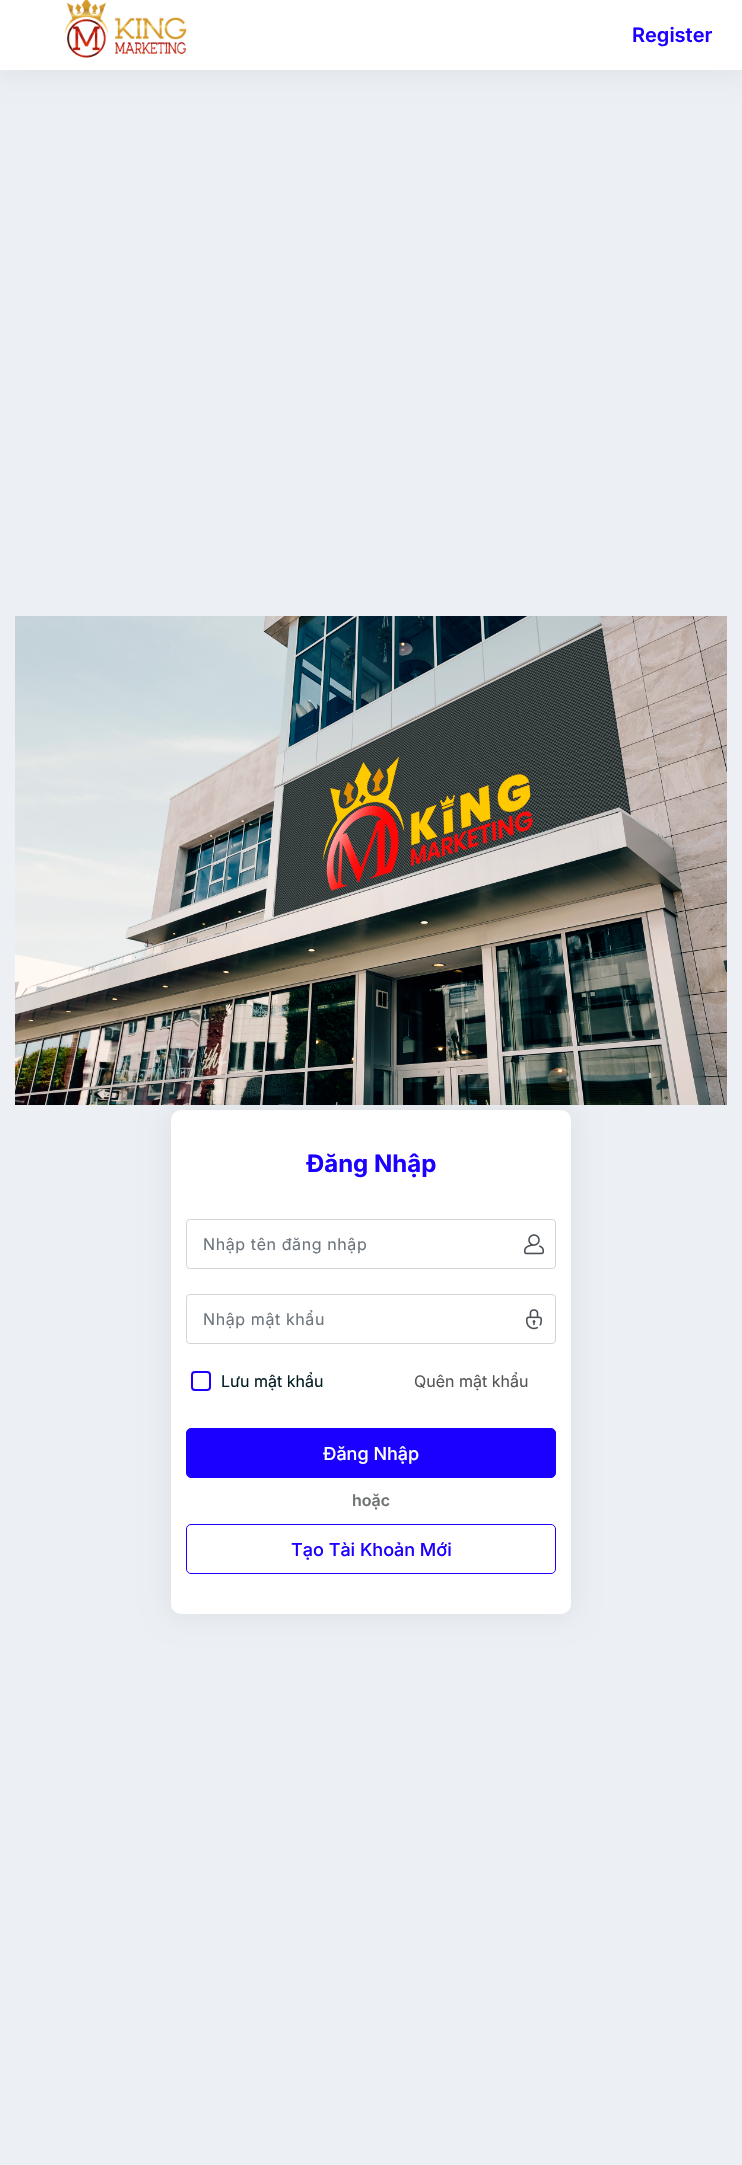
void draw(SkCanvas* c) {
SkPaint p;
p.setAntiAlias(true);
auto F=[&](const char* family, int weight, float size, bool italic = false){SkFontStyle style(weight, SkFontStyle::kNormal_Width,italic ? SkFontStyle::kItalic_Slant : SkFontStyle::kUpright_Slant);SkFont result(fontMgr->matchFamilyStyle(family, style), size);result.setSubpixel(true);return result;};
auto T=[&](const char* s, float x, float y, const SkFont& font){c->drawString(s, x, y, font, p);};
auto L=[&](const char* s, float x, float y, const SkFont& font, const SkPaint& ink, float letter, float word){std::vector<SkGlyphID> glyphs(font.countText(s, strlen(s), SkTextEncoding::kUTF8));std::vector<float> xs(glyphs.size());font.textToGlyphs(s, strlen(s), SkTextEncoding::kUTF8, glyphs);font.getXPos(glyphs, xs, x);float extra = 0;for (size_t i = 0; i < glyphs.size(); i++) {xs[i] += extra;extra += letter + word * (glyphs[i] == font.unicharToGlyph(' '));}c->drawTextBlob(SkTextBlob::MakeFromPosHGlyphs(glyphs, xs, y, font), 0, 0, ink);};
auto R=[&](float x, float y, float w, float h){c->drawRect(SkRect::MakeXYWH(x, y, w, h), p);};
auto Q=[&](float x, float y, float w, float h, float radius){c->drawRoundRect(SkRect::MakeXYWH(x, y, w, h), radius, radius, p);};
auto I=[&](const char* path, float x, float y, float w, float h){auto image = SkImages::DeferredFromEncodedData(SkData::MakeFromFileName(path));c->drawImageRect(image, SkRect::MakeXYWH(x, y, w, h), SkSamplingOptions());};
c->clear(0xffecf0f4);
p.setColor(0x14000000);
p.setMaskFilter(SkMaskFilter::MakeBlur(kNormal_SkBlurStyle, 14));
c->drawRect(SkRect::MakeXYWH(0,0,742,70),p);
p.setMaskFilter(nullptr);
p.setColor(0xffffffff);
R(0,0,742,70);
I("1.png",59,0,128,58);
auto f1 = F("Inter",600,20);
p.setColor(0xff1b00ff);
T("Register",632,42,f1);
I("2.png",15,616,712,489);
p.setColor(0x14000000);
p.setMaskFilter(SkMaskFilter::MakeBlur(kNormal_SkBlurStyle, 14));
c->drawRoundRect(SkRect::MakeXYWH(171,1110,400,504),10,10,p);
p.setMaskFilter(nullptr);
p.setColor(0xffffffff);
Q(171,1110,400,504,10);
auto f2 = F("Inter",700,24);
p.setColor(0xff1b00ff);
T("Đăng Nhập",306,1172,f2);
p.setStroke(true);
p.setStrokeWidth(1);
p.setColor(0xffd4d4d4);
c->drawRoundRect(SkRect::MakeXYWH(186.5,1219.5,369,49),3.5,3.5,p);
auto f3 = F("Inter",400,16);
p.setStroke(false);
p.setColor(0xff6c757d);
L("Nhập tên đăng nhập",203,1250,f3,p,.6,0);
I("3.png",524,1234,20,21);
p.setStroke(true);
p.setColor(0xffd4d4d4);
c->drawRoundRect(SkRect::MakeXYWH(186.5,1294.5,369,49),3.5,3.5,p);
p.setStroke(false);
p.setColor(0xff6c757d);
L("Nhập mật khẩu",203,1325,f3,p,.6,0);
I("4.png",526,1309,16,21);
p.setStroke(true);
p.setStrokeWidth(2);
p.setColor(0xff1b00ff);
c->drawRoundRect(SkRect::MakeXYWH(192,1372,18,18),3,3,p);
p.setStroke(false);
p.setColor(0xff031e23);
T("Lưu mật khẩu",221,1387,f3);
p.setColor(0xff555555);
T("Quên mật khẩu",414,1387,f3);
p.setColor(0xff1b00ff);
c->drawRoundRect(SkRect::MakeXYWH(186.5,1428.5,369,49),4.5,4.5,p);
p.setStroke(true);
p.setStrokeWidth(1);
c->drawRoundRect(SkRect::MakeXYWH(186.5,1428.5,369,49),4.5,4.5,p);
auto f4 = F("Inter",500,18);
p.setStroke(false);
p.setColor(0xffffffff);
T("Đăng Nhập",323,1460,f4);
auto f5 = F("Inter",600,16);
p.setColor(0xff707373);
T("hoặc",352,1506,f5);
p.setStroke(true);
p.setColor(0xff1b00ff);
c->drawRoundRect(SkRect::MakeXYWH(186.5,1524.5,369,49),4.5,4.5,p);
p.setStroke(false);
T("Tạo Tài Khoản Mới",291,1556,f4);
}
